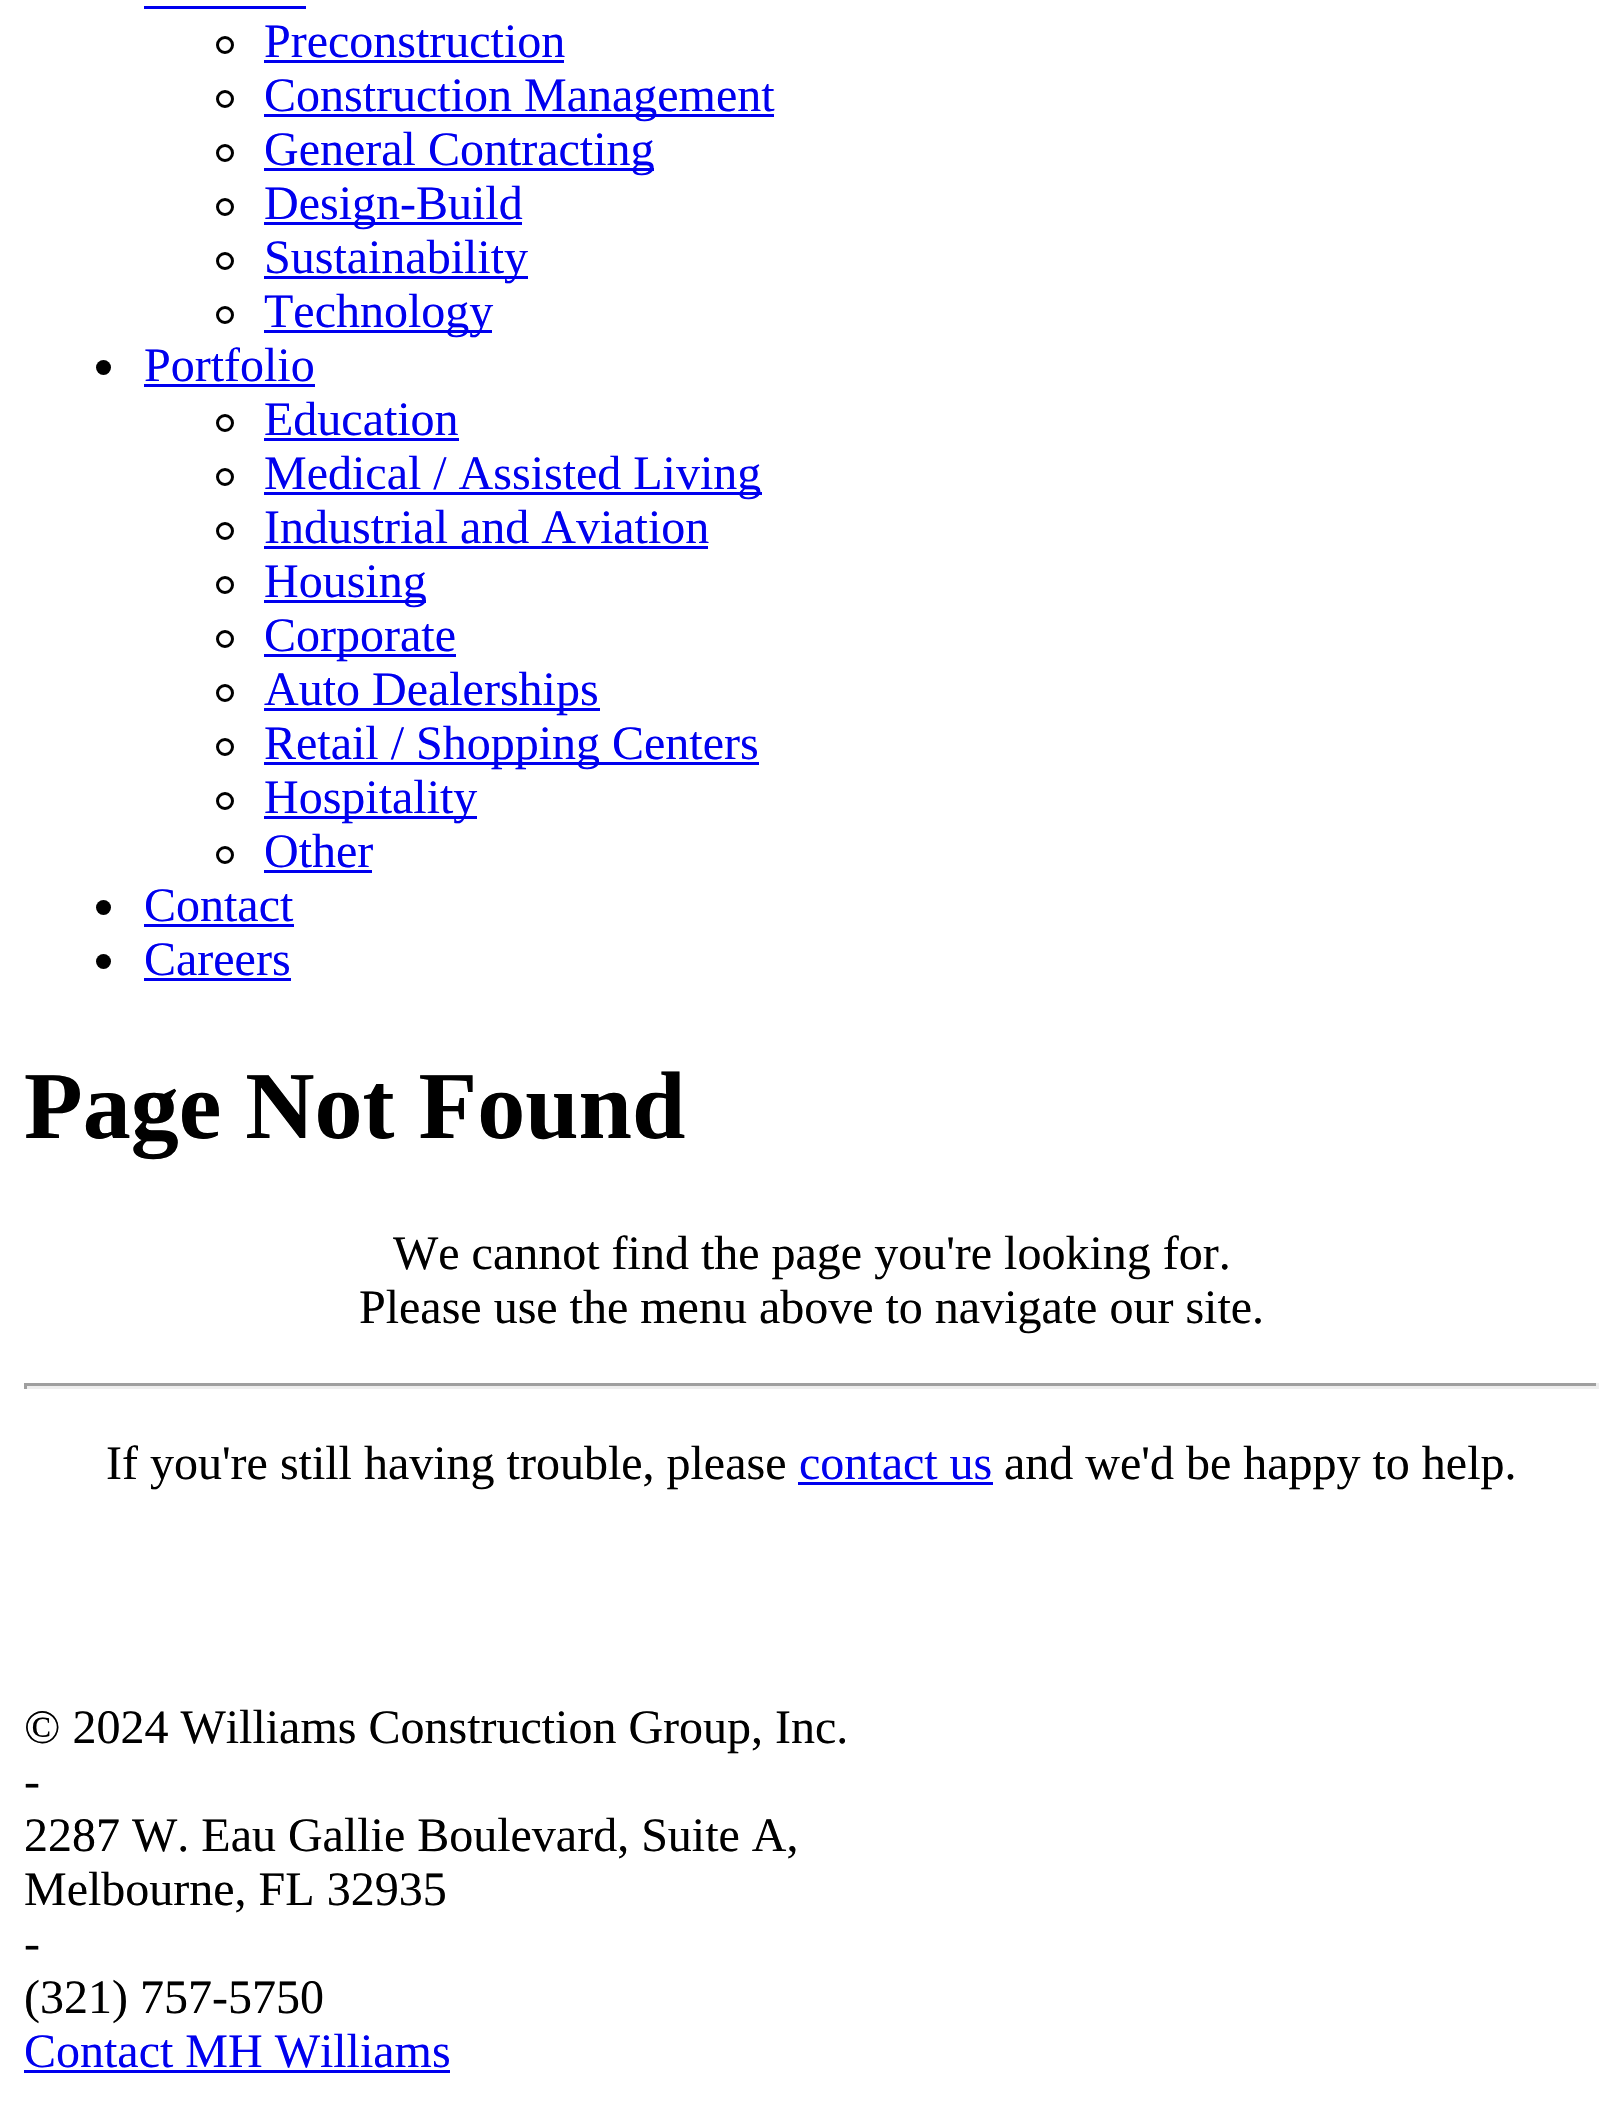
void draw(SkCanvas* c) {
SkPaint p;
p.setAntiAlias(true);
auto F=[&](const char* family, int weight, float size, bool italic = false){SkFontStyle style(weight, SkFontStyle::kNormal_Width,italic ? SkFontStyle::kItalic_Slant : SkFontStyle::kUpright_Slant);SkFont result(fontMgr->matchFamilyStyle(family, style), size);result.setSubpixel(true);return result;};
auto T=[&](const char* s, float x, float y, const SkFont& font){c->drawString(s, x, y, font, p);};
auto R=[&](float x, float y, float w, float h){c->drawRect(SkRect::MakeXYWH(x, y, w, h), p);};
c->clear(0xffffffff);
p.setColor(0xff0000ee);
R(144,6,162,3);
p.setStroke(true);
p.setStrokeWidth(3);
p.setColor(0xff000000);
c->drawCircle(225,45,7.5,p);
auto f1 = F("Liberation Serif",400,48);
p.setStroke(false);
p.setColor(0xff0000ee);
T("Preconstruction",264,57,f1);
R(264,60,300,3);
p.setStroke(true);
p.setColor(0xff000000);
c->drawCircle(225,99,7.5,p);
p.setStroke(false);
p.setColor(0xff0000ee);
R(264,114,510,3);
T("Construction Management",264,111,f1);
p.setStroke(true);
p.setColor(0xff000000);
c->drawCircle(225,153,7.5,p);
p.setStroke(false);
p.setColor(0xff0000ee);
R(264,168,390,3);
T("General Contracting",264,165,f1);
p.setStroke(true);
p.setColor(0xff000000);
c->drawCircle(225,207,7.5,p);
p.setStroke(false);
p.setColor(0xff0000ee);
R(264,222,258,3);
T("Design-Build",264,219,f1);
p.setStroke(true);
p.setColor(0xff000000);
c->drawCircle(225,261,7.5,p);
p.setStroke(false);
p.setColor(0xff0000ee);
R(264,276,264,3);
T("Sustainability",264,273,f1);
p.setStroke(true);
p.setColor(0xff000000);
c->drawCircle(225,315,7.5,p);
p.setStroke(false);
p.setColor(0xff0000ee);
R(264,330,228,3);
T("Technology",264,327,f1);
p.setColor(0xff000000);
c->drawCircle(103.5,367.5,7.5,p);
p.setColor(0xff0000ee);
T("Portfolio",144,381,f1);
R(144,384,171,3);
p.setStroke(true);
p.setColor(0xff000000);
c->drawCircle(225,423,7.5,p);
p.setStroke(false);
p.setColor(0xff0000ee);
T("Education",264,435,f1);
R(264,438,195,3);
p.setStroke(true);
p.setColor(0xff000000);
c->drawCircle(225,477,7.5,p);
p.setStroke(false);
p.setColor(0xff0000ee);
R(264,492,498,3);
T("Medical / Assisted Living",264,489,f1);
p.setStroke(true);
p.setColor(0xff000000);
c->drawCircle(225,531,7.5,p);
p.setStroke(false);
p.setColor(0xff0000ee);
T("Industrial and Aviation",264,543,f1);
R(264,546,444,3);
p.setStroke(true);
p.setColor(0xff000000);
c->drawCircle(225,585,7.5,p);
p.setStroke(false);
p.setColor(0xff0000ee);
R(264,600,162,3);
T("Housing",264,597,f1);
p.setStroke(true);
p.setColor(0xff000000);
c->drawCircle(225,639,7.5,p);
p.setStroke(false);
p.setColor(0xff0000ee);
R(264,654,192,3);
T("Corporate",264,651,f1);
p.setStroke(true);
p.setColor(0xff000000);
c->drawCircle(225,693,7.5,p);
p.setStroke(false);
p.setColor(0xff0000ee);
R(264,708,336,3);
T("Auto Dealerships",264,705,f1);
p.setStroke(true);
p.setColor(0xff000000);
c->drawCircle(225,747,7.5,p);
p.setStroke(false);
p.setColor(0xff0000ee);
R(264,762,495,3);
T("Retail / Shopping Centers",264,759,f1);
p.setStroke(true);
p.setColor(0xff000000);
c->drawCircle(225,801,7.5,p);
p.setStroke(false);
p.setColor(0xff0000ee);
R(264,816,213,3);
T("Hospitality",264,813,f1);
p.setStroke(true);
p.setColor(0xff000000);
c->drawCircle(225,855,7.5,p);
p.setStroke(false);
p.setColor(0xff0000ee);
T("Other",264,867,f1);
R(264,870,108,3);
p.setColor(0xff000000);
c->drawCircle(103.5,907.5,7.5,p);
p.setColor(0xff0000ee);
T("Contact",144,921,f1);
R(144,924,150,3);
p.setColor(0xff000000);
c->drawCircle(103.5,961.5,7.5,p);
p.setColor(0xff0000ee);
T("Careers",144,975,f1);
R(144,978,147,3);
auto f2 = F("Liberation Serif",700,96);
p.setColor(0xff000000);
T("Page Not Found",24,1138,f2);
T("We cannot find the page you're looking for.",393,1269,f1);
T("Please use the menu above to navigate our site.",359,1323,f1);
p.setColor(0xff9f9f9f);
R(24,1383,1575,3);
p.setColor(0xffeeeeee);
R(1596,1383,3,6);
R(24,1386,1575,3);
p.setColor(0xff9f9f9f);
R(24,1383,3,6);
p.setColor(0xff000000);
T("If you're still having trouble, please",106,1479,f1);
p.setColor(0xff0000ee);
T("contact us",799,1479,f1);
R(798,1482,195,3);
p.setColor(0xff000000);
T("and we'd be happy to help.",1004,1479,f1);
T("© 2024 Williams Construction Group, Inc.",24,1743,f1);
T("-",24,1797,f1);
T("2287 W. Eau Gallie Boulevard, Suite A,",24,1851,f1);
T("Melbourne, FL 32935",24,1905,f1);
T("-",24,1959,f1);
T("(321) 757-5750",24,2013,f1);
p.setColor(0xff0000ee);
T("Contact MH Williams",24,2067,f1);
R(24,2070,426,3);
}
